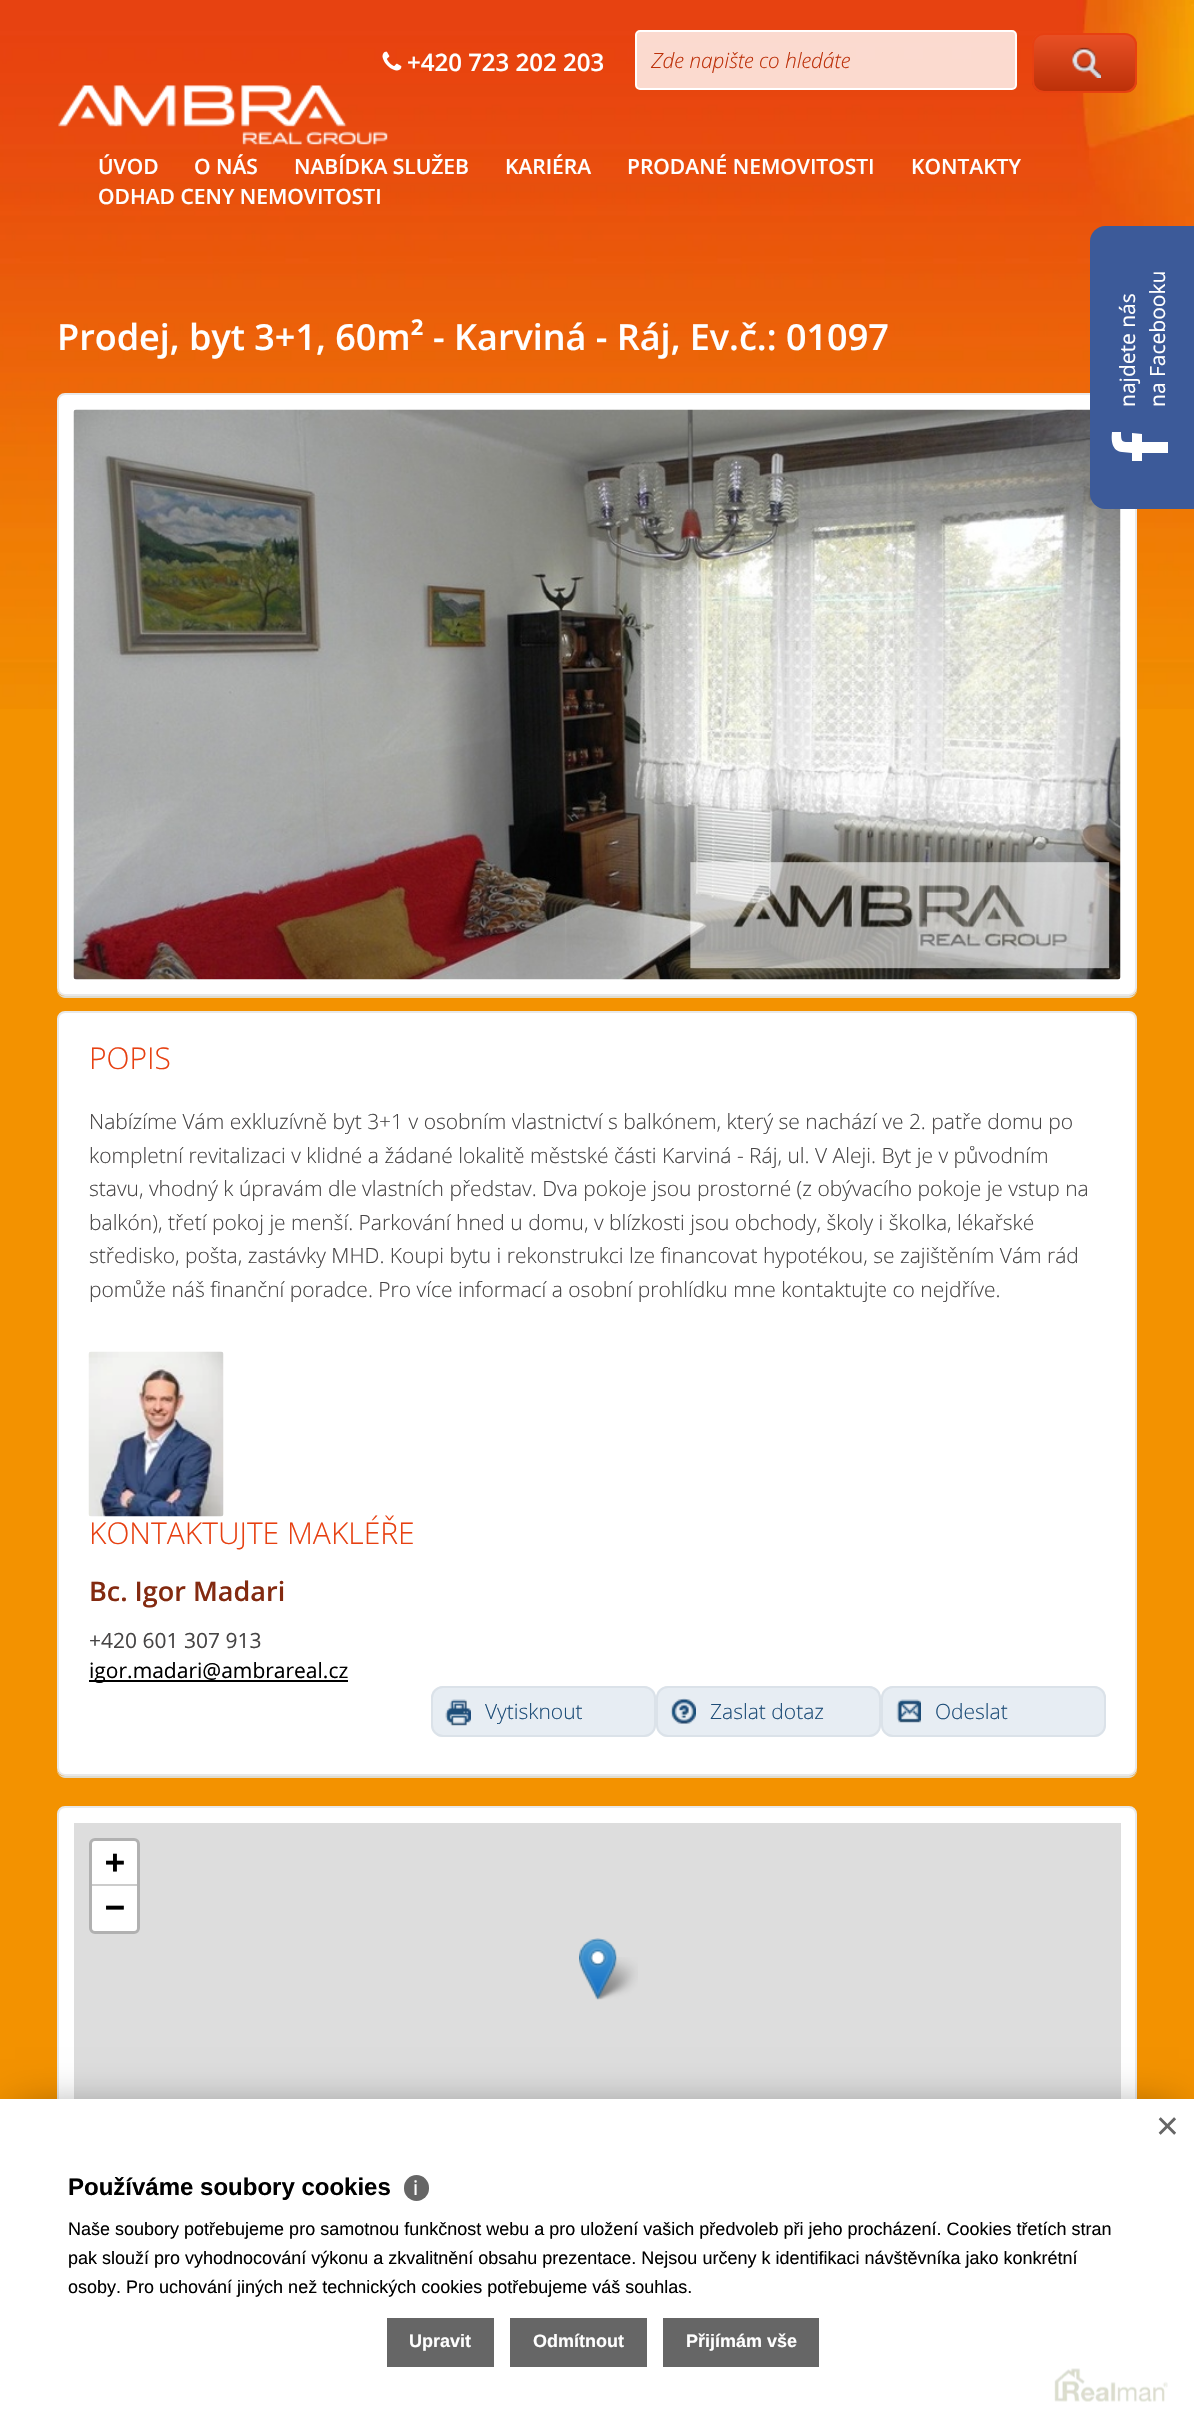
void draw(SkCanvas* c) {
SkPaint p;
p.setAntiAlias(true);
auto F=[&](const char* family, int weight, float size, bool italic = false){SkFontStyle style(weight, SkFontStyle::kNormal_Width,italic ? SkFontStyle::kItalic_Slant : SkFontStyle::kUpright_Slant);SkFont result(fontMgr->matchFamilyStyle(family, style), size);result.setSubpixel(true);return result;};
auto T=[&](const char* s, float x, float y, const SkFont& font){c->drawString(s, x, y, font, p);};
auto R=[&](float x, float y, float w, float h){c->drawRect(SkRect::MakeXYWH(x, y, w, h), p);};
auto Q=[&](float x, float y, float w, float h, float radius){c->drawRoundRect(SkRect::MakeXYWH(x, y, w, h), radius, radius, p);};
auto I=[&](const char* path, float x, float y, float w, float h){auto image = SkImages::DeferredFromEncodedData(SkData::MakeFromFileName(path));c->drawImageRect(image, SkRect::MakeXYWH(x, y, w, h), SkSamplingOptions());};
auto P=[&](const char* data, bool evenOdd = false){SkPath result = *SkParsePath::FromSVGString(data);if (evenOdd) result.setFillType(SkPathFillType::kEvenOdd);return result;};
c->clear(0xfff39200);
I("1.png",0,0,1194,709);
I("2.png",382,51,20,20);
auto f1 = F("Open Sans",600,24);
p.setColor(0xffffffff);
T("+420 723 202 203",407,71,f1);
p.setColor(0xccffffff);
c->drawRoundRect(SkRect::MakeXYWH(636,31,380,58),4,4,p);
p.setStroke(true);
p.setStrokeWidth(2);
p.setColor(0xffffffff);
c->drawRoundRect(SkRect::MakeXYWH(636,31,380,58),4,4,p);
auto f2 = F("Open Sans",300,21,true);
p.setStroke(false);
p.setColor(0xffbd3009);
T("Zde napište co hledáte",651,68,f2);
c->save();
c->clipPath(P("M1044 33h81c6.5 0 12 5.5 12 12v36c0 6.5-5.5 12-12 12h-81c-6.5 0-12-5.5-12-12v-36c0-6.5 5.5-12 12-12z"),true);
{
const SkColor colors[] = {0xffe95025,0xffbb3008};
const float stops[] = {0,1};
const SkPoint ends[] = {{1085,34}, {1085,92}};
p.setShader(SkGradientShader::MakeLinear(ends, colors, stops, 2, SkTileMode::kClamp));
p.setAlpha(255);
}
R(1032,35,105,57);
c->restore();
p.setStroke(true);
p.setShader(nullptr);
p.setColor(0xffe74011);
c->drawRoundRect(SkRect::MakeXYWH(1033,34,103,58),11,11,p);
I("3.png",1072,47,29,31);
I("4.png",58,85,330,60);
auto f3 = F("Open Sans",600,21);
p.setStroke(false);
p.setColor(0xffffffff);
T("ÚVOD",98,174,f3);
T("O NÁS",194,174,f3);
T("NABÍDKA SLUŽEB",294,174,f3);
T("KARIÉRA",505,174,f3);
T("PRODANÉ NEMOVITOSTI",627,174,f3);
T("KONTAKTY",911,174,f3);
T("ODHAD CENY NEMOVITOSTI",98,204,f3);
auto f4 = F("Open Sans",600,36);
T("Prodej, byt 3+1, 60m² - Karviná - Ráj, Ev.č.: 01097",57,350,f4);
p.setColor(0xffe0dccd);
c->drawPath(P("M57 988v2c0 4 4 8 8 8h1064c4 0 8-4 8-8v-2c0 5-3 8-7 8h-1066c-4 0-7-3-7-8z"),p);
p.setColor(0xffffffff);
c->drawRoundRect(SkRect::MakeXYWH(58,394,1078,601),7,7,p);
p.setStroke(true);
p.setColor(0xffe9e9e9);
c->drawRoundRect(SkRect::MakeXYWH(58,394,1078,601),7,7,p);
I("5.png",73,409,1048,571);
p.setStroke(false);
p.setColor(0xff3c5a99);
c->drawPath(P("M1090 494v-253c0-8 7-15 15-15h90v283h-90c-8 0-15-7-15-15z"),p);
auto f5 = F("Open Sans",400,21);
p.setColor(0xffffffff);
c->save();
c->rotate(-90,1135,407);
T("najdete nás",1135,407,f5);
c->restore();
c->save();
c->rotate(-90,1165,407);
T("na Facebooku",1165,407,f5);
c->restore();
c->drawPath(P("M1112 432h9c0 11 1 10 11 10v-9l10 1v8h26v11h-26v8h-10v-8l-10-1c-10-1-11-11-10-20z"),p);
p.setColor(0xffe0dccd);
c->drawPath(P("M57 1768v2c0 4 4 8 8 8h1064c4 0 8-4 8-8v-2c0 5-3 8-7 8h-1066c-4 0-7-3-7-8z"),p);
p.setColor(0xffffffff);
c->drawRoundRect(SkRect::MakeXYWH(58,1012,1078,763),7,7,p);
p.setStroke(true);
p.setColor(0xffe9e9e9);
c->drawRoundRect(SkRect::MakeXYWH(58,1012,1078,763),7,7,p);
auto f6 = F("Open Sans",300,30);
p.setStroke(false);
p.setColor(0xffe74011);
T("POPIS",89,1069,f6);
auto f7 = F("Open Sans",300,21);
p.setColor(0xff464444);
T("Nabízíme Vám exkluzívně byt 3+1 v osobním vlastnictví s balkónem, který se nachází ve 2. patře domu po",89,1129,f7);
T("kompletní revitalizaci v klidné a žádané lokalitě městské části Karviná - Ráj, ul. V Aleji. Byt je v původním",89,1163,f7);
T("stavu, vhodný k úpravám dle vlastních představ. Dva pokoje jsou prostorné (z obývacího pokoje je vstup na",89,1196,f7);
T("balkón), třetí pokoj je menší. Parkování hned u domu, v blízkosti jsou obchody, školy i školka, lékařské",89,1230,f7);
T("středisko, pošta, zastávky MHD. Koupi bytu i rekonstrukci lze financovat hypotékou, se zajištěním Vám rád",89,1263,f7);
T("pomůže náš finanční poradce. Pro více informací a osobní prohlídku mne kontaktujte co nejdříve.",89,1297,f7);
I("6.png",88,1351,136,166);
p.setColor(0xffe74011);
T("KONTAKTUJTE MAKLÉŘE",89,1544,f6);
auto f8 = F("Open Sans",600,27);
p.setColor(0xff832a10);
T("Bc. Igor Madari",89,1601,f8);
p.setColor(0xff464444);
T("+420 601 307 913",89,1648,f5);
p.setColor(0xff000000);
R(89,1680,259,2);
T("igor.madari@ambrareal.cz",89,1678,f5);
p.setColor(0xffe7edf3);
Q(431,1686,225,51,12);
I("7.png",445,1699,26,27);
p.setStroke(true);
p.setColor(0xffdbe2e9);
c->drawRoundRect(SkRect::MakeXYWH(432,1687,223,49),11,11,p);
p.setStroke(false);
p.setColor(0xff1d4d78);
T("Vytisknout",485,1719,f7);
p.setColor(0xffe7edf3);
Q(656,1686,225,51,12);
I("8.png",670,1698,26,26);
p.setStroke(true);
p.setColor(0xffdbe2e9);
c->drawRoundRect(SkRect::MakeXYWH(657,1687,223,49),11,11,p);
p.setStroke(false);
p.setColor(0xff1d4d78);
T("Zaslat dotaz",710,1719,f7);
p.setColor(0xffe7edf3);
Q(881,1686,225,51,12);
I("9.png",896,1699,25,24);
p.setStroke(true);
p.setColor(0xffdbe2e9);
c->drawRoundRect(SkRect::MakeXYWH(882,1687,223,49),11,11,p);
p.setStroke(false);
p.setColor(0xff1d4d78);
T("Odeslat",935,1719,f7);
p.setColor(0xffffffff);
c->drawRoundRect(SkRect::MakeXYWH(58,1807,1078,387),7,7,p);
p.setStroke(true);
p.setColor(0xffe9e9e9);
c->drawRoundRect(SkRect::MakeXYWH(58,1807,1078,387),7,7,p);
p.setStroke(false);
p.setColor(0xffdddddd);
R(74,1823,1047,276);
p.setStroke(true);
p.setStrokeWidth(3);
p.setColor(0xffb1b1b1);
c->drawRoundRect(SkRect::MakeXYWH(90.5,1839.5,48,93),4.5,4.5,p);
p.setStroke(false);
p.setColor(0xffffffff);
c->drawPath(P("M95 1841h39c1.5 0 3 1.5 3 3v42h-45v-42c0-1.5 1.5-3 3-3z"),p);
p.setColor(0xffcccccc);
R(92,1884,45,2);
auto f9 = F("DejaVu Sans Mono",700,33);
p.setColor(0xff000000);
T("+",105,1873,f9);
p.setColor(0xffffffff);
c->drawPath(P("M92 1886h45v42c0 1.5-1.5 3-3 3h-39c-1.5 0-3-1.5-3-3z"),p);
p.setColor(0xff000000);
T("−",105,1918,f9);
I("11.png",592,1957,46,43);
I("10.png",579,1938,38,62);
p.setColor(0x80000000);
p.setMaskFilter(SkMaskFilter::MakeBlur(kNormal_SkBlurStyle, 22.5));
c->drawRect(SkRect::MakeXYWH(15,2114,1164,298),p);
p.setMaskFilter(nullptr);
p.setColor(0xffffffff);
R(0,2099,1194,328);
I("12.png",1054,2368,114,34);
auto f10 = F("Liberation Sans",400,39);
p.setColor(0xff666666);
T("×",1156,2139,f10);
auto f11 = F("Liberation Sans",700,24);
p.setColor(0xff000000);
T("Používáme soubory cookies",68,2195,f11);
p.setColor(0xff666666);
Q(404,2175,25,26,12.5);
auto f12 = F("Noto Sans",400,20);
p.setColor(0xffffffff);
T("ℹ",413,2195,f12);
auto f13 = F("Liberation Sans",400,18);
p.setColor(0xff000000);
T("Naše soubory potřebujeme pro samotnou funkčnost webu a pro uložení vašich předvoleb při jeho procházení. Cookies třetích stran",68,2235,f13);
T("pak slouží pro vyhodnocování výkonu a zkvalitnění obsahu prezentace. Nejsou určeny k identifikaci návštěvníka jako konkrétní",68,2264,f13);
T("osoby. Pro uchování jiných než technických cookies potřebujeme váš souhlas.",68,2293,f13);
p.setColor(0xff666666);
R(387,2318,107,49);
auto f14 = F("Liberation Sans",700,18);
p.setColor(0xffffffff);
T("Upravit",409,2347,f14);
p.setColor(0xff666666);
R(510,2318,137,49);
p.setColor(0xffffffff);
T("Odmítnout",533,2347,f14);
p.setColor(0xff666666);
R(663,2318,156,49);
p.setColor(0xffffffff);
T("Přijímám vše",686,2347,f14);
}
